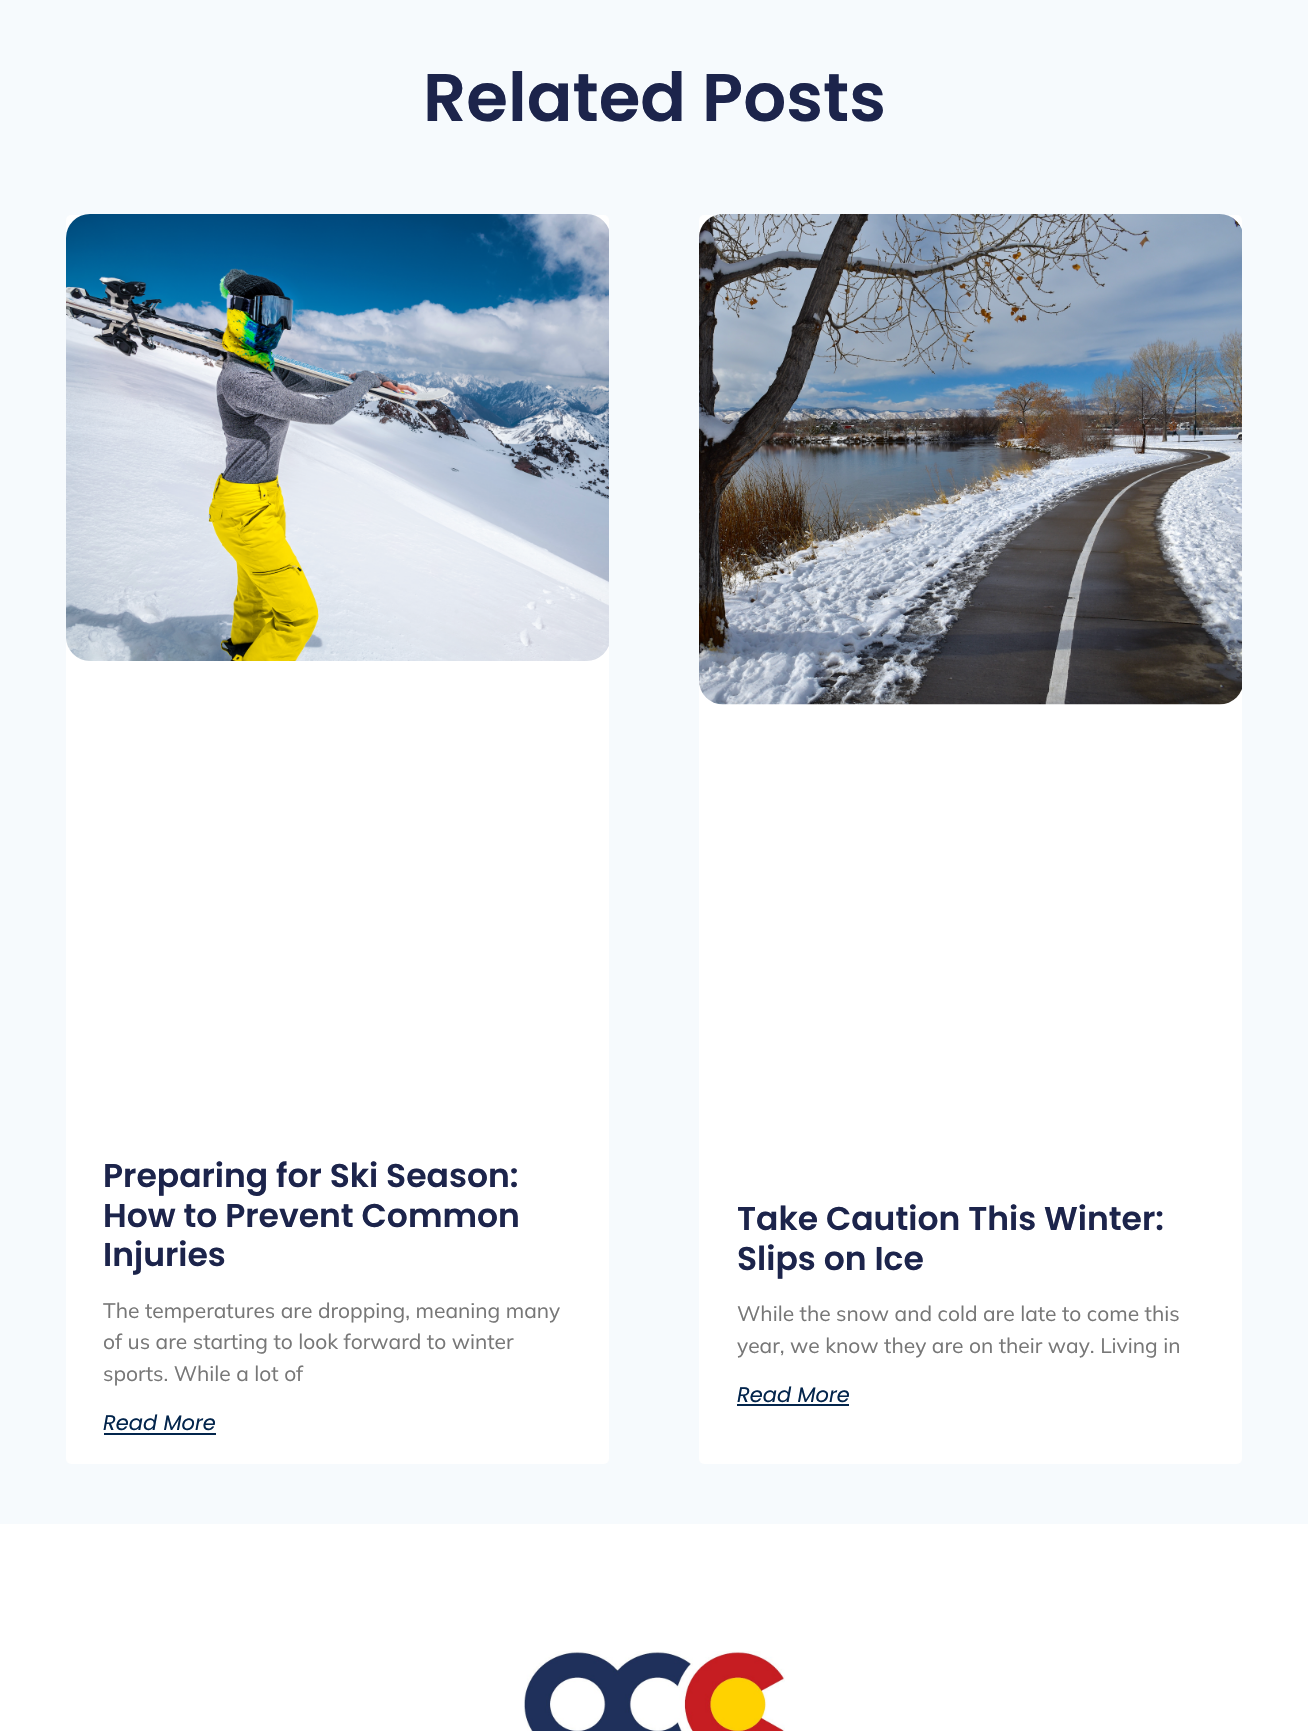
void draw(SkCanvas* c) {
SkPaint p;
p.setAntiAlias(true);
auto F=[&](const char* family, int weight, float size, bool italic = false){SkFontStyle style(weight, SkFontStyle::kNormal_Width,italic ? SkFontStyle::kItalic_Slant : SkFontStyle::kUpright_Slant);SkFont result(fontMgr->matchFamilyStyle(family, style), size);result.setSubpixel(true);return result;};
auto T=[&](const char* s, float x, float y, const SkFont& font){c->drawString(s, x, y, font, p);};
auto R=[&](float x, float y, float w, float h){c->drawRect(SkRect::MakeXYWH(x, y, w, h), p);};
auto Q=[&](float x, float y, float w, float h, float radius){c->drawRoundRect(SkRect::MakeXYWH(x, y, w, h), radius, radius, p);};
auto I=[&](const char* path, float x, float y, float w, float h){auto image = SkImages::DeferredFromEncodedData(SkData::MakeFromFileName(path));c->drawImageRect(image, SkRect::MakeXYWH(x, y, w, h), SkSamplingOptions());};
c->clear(0xffffffff);
p.setColor(0xfff6fafd);
R(0,0,1308,1524);
auto f1 = F("Poppins",600,67.5);
p.setColor(0xff1c244b);
T("Related Posts",423,121,f1);
p.setColor(0xffffffff);
Q(66,215,543,1249,5);
I("1.png",66,214,543,447);
auto f2 = F("Poppins",600,33);
p.setColor(0xff1c244b);
T("Preparing for Ski Season:",103,1187,f2);
T("How to Prevent Common",103,1227,f2);
T("Injuries",103,1266,f2);
auto f3 = F("Mulish",400,21);
p.setColor(0xff777777);
T("The temperatures are dropping, meaning many",103,1318,f3);
T("of us are starting to look forward to winter",103,1349,f3);
T("sports. While a lot of",103,1381,f3);
auto f4 = F("Poppins",400,21,true);
p.setColor(0xff03254c);
T("Read More",103,1430,f4);
R(104,1433,112,2);
p.setColor(0xffffffff);
Q(699,215,543,1249,5);
I("2.png",699,214,543,491);
p.setColor(0xff1c244b);
T("Take Caution This Winter:",737,1230,f2);
T("Slips on Ice",737,1270,f2);
p.setColor(0xff777777);
T("While the snow and cold are late to come this",737,1321,f3);
T("year, we know they are on their way. Living in",737,1353,f3);
p.setColor(0xff03254c);
T("Read More",737,1402,f4);
R(737,1404,112,2);
I("3.png",523,1651,262,80);
}
